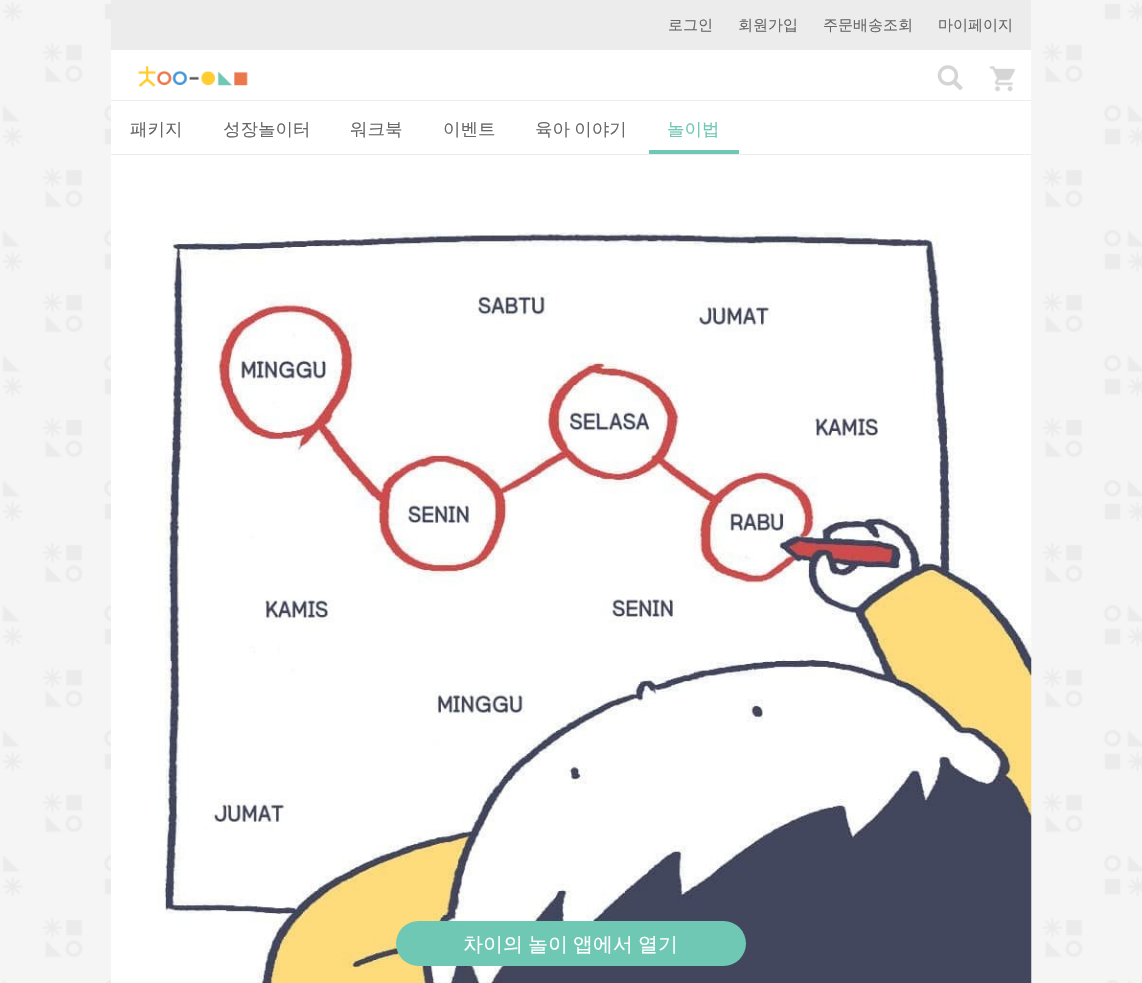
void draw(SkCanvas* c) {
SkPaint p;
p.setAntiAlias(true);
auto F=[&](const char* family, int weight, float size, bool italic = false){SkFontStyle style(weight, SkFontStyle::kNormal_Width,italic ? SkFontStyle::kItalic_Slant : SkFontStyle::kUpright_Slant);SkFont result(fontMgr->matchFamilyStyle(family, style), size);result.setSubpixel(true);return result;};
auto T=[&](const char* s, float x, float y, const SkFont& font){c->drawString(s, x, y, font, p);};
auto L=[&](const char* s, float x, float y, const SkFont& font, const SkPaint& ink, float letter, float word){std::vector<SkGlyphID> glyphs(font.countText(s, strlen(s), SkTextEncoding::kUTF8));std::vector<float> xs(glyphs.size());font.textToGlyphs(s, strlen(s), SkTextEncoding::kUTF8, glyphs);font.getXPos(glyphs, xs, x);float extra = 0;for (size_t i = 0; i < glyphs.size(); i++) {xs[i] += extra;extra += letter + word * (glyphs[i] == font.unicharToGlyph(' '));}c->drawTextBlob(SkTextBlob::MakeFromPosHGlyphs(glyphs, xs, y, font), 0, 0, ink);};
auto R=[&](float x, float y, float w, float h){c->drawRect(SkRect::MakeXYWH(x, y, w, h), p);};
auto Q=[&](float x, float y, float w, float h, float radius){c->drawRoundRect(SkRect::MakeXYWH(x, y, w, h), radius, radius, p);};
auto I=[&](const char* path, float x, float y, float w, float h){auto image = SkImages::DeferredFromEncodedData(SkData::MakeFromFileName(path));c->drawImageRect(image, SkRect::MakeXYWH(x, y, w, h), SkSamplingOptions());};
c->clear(0xffffffff);
I("1.png",0,0,1142,983);
p.setColor(0xffffffff);
R(111,50,920,933);
p.setColor(0xffececec);
R(111,0,920,50);
auto f1 = F("WenQuanYi Zen Hei",500,15);
p.setColor(0xff666666);
T("로그인",668,30,f1);
T("회원가입",738,30,f1);
T("주문배송조회",823,30,f1);
T("마이페이지",938,30,f1);
p.setColor(0xffececec);
R(111,100,920,1);
I("2.png",138,65,110,22);
I("3.png",937,65,26,25);
I("4.png",989,66,27,26);
R(111,154,920,1);
auto f2 = F("WenQuanYi Zen Hei",500,17.5);
p.setColor(0xff666666);
T("패키지",130,135,f2);
T("성장놀이터",223,135,f2);
T("워크북",350,135,f2);
T("이벤트",443,135,f2);
L("육아 이야기",535,135,f2,p,0,-1);
p.setColor(0xff6ec8b4);
T("놀이법",667,135,f2);
R(649,150,90,4);
I("5.png",157,231,875,752);
Q(396,921,350,45,22.5);
auto f3 = F("WenQuanYi Zen Hei",500,20);
p.setColor(0xffffffff);
L("차이의 놀이 앱에서 열기",463,951,f3,p,0,-1);
}
